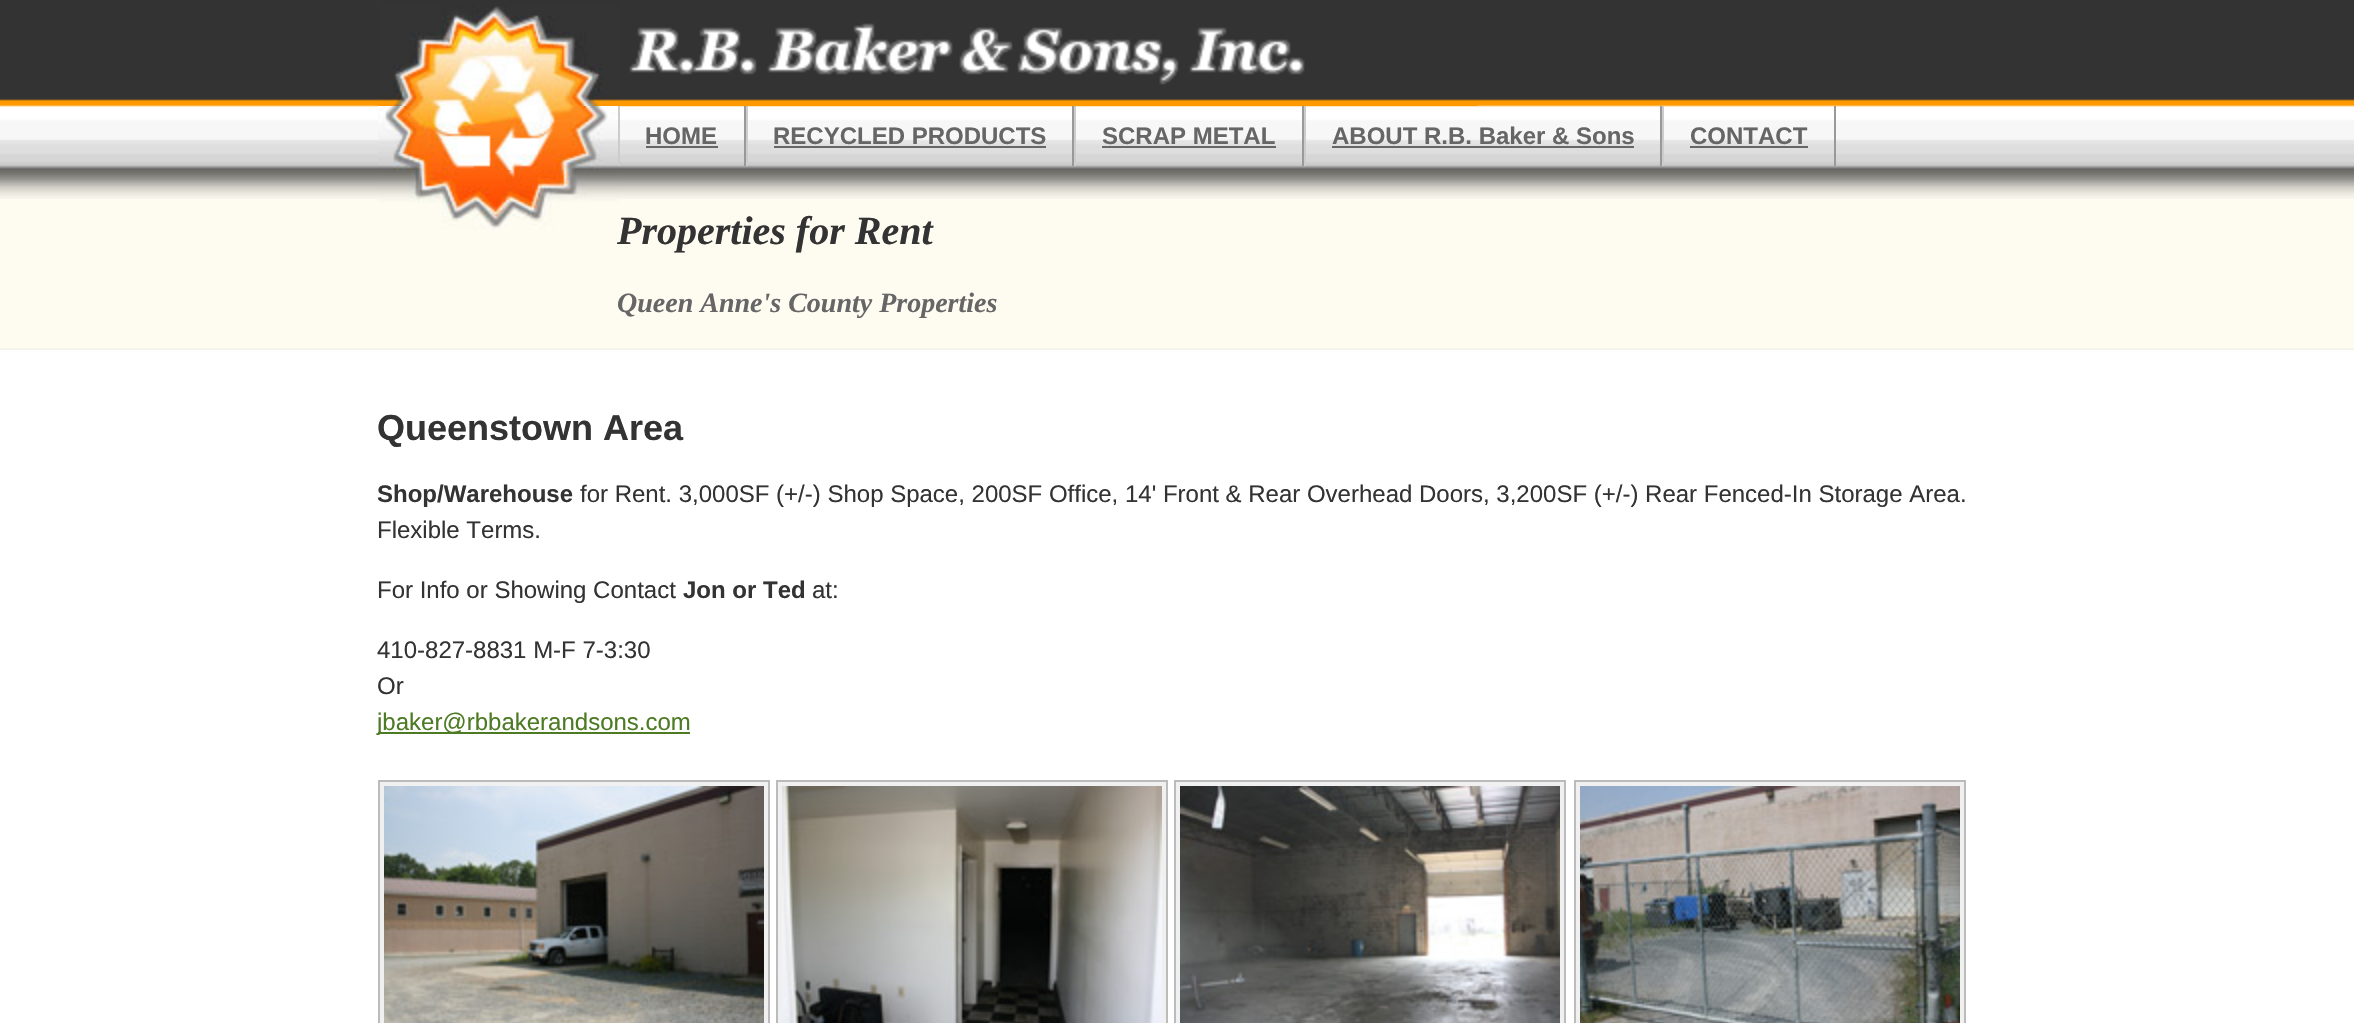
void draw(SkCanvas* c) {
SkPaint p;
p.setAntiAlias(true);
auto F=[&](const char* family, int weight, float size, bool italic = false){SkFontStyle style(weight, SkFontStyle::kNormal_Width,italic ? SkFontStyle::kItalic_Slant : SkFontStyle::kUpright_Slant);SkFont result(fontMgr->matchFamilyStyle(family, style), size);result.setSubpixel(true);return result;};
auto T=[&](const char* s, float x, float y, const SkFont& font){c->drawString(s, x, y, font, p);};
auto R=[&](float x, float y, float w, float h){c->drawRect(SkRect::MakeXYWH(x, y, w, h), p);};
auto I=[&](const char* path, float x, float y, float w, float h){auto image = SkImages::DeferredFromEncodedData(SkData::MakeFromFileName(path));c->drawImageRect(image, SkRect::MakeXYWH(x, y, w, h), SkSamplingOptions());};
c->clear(0xffffffff);
I("1.png",0,0,2354,170);
I("2.png",378,6,240,100);
I("3.png",618,23,860,83);
I("4.png",378,106,240,64);
p.setColor(0xff999999);
R(744,106,2,60);
p.setColor(0xffcccccc);
R(618,106,2,60);
auto f1 = F("Liberation Sans",700,24);
p.setColor(0xff666666);
T("HOME",645,144,f1);
R(646,146,72,2);
p.setColor(0xff999999);
R(1072,106,2,60);
p.setColor(0xffcccccc);
R(746,106,2,60);
p.setColor(0xff666666);
T("RECYCLED PRODUCTS",773,144,f1);
R(774,146,272,2);
p.setColor(0xff999999);
R(1302,106,2,60);
p.setColor(0xffcccccc);
R(1074,106,2,60);
p.setColor(0xff666666);
T("SCRAP METAL",1102,144,f1);
R(1102,146,174,2);
p.setColor(0xff999999);
R(1660,106,2,60);
p.setColor(0xffcccccc);
R(1304,106,2,60);
p.setColor(0xff666666);
T("ABOUT R.B. Baker & Sons",1332,144,f1);
R(1332,146,302,2);
p.setColor(0xff999999);
R(1834,106,2,60);
p.setColor(0xffcccccc);
R(1662,106,2,60);
p.setColor(0xff666666);
T("CONTACT",1690,144,f1);
R(1690,146,118,2);
p.setColor(0xfffefbf1);
R(0,199,2354,149);
I("5.png",0,170,2354,29);
p.setColor(0xfff6f3e9);
R(0,348,2354,2);
I("6.png",378,170,240,60);
auto f2 = F("Liberation Serif",700,40,true);
p.setColor(0xff333333);
T("Properties for Rent",617,244,f2);
auto f3 = F("Liberation Serif",700,28,true);
p.setColor(0xff666666);
T("Queen Anne's County Properties",617,312,f3);
auto f4 = F("Liberation Sans",700,36);
p.setColor(0xff333333);
T("Queenstown Area",377,440,f4);
T("Shop/Warehouse",377,502,f1);
auto f5 = F("Liberation Sans",400,24);
T("for Rent. 3,000SF (+/-) Shop Space, 200SF Office, 14' Front & Rear Overhead Doors, 3,200SF (+/-) Rear Fenced-In Storage Area.",580,502,f5);
T("Flexible Terms.",377,538,f5);
T("For Info or Showing Contact",377,598,f5);
T("Jon or Ted",683,598,f1);
T("at:",812,598,f5);
T("410-827-8831 M-F 7-3:30",377,658,f5);
T("Or",377,694,f5);
p.setColor(0xff4d7b23);
R(378,732,312,2);
T("jbaker@rbbakerandsons.com",377,730,f5);
p.setColor(0xfff0f0f0);
c->drawRect(SkRect::MakeXYWH(379,781,390,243),p);
p.setStroke(true);
p.setStrokeWidth(2);
p.setColor(0xffbbbbbb);
c->drawRect(SkRect::MakeXYWH(379,781,390,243),p);
p.setStroke(false);
p.setColor(0xfff0f0f0);
c->drawRect(SkRect::MakeXYWH(777,781,390,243),p);
p.setStroke(true);
p.setColor(0xffbbbbbb);
c->drawRect(SkRect::MakeXYWH(777,781,390,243),p);
p.setStroke(false);
p.setColor(0xfff0f0f0);
c->drawRect(SkRect::MakeXYWH(1175,781,390,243),p);
p.setStroke(true);
p.setColor(0xffbbbbbb);
c->drawRect(SkRect::MakeXYWH(1175,781,390,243),p);
p.setStroke(false);
p.setColor(0xfff0f0f0);
c->drawRect(SkRect::MakeXYWH(1575,781,390,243),p);
p.setStroke(true);
p.setColor(0xffbbbbbb);
c->drawRect(SkRect::MakeXYWH(1575,781,390,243),p);
I("7.png",384,786,380,237);
I("8.png",782,786,380,237);
I("9.png",1180,786,380,237);
I("10.png",1580,786,380,237);
}
